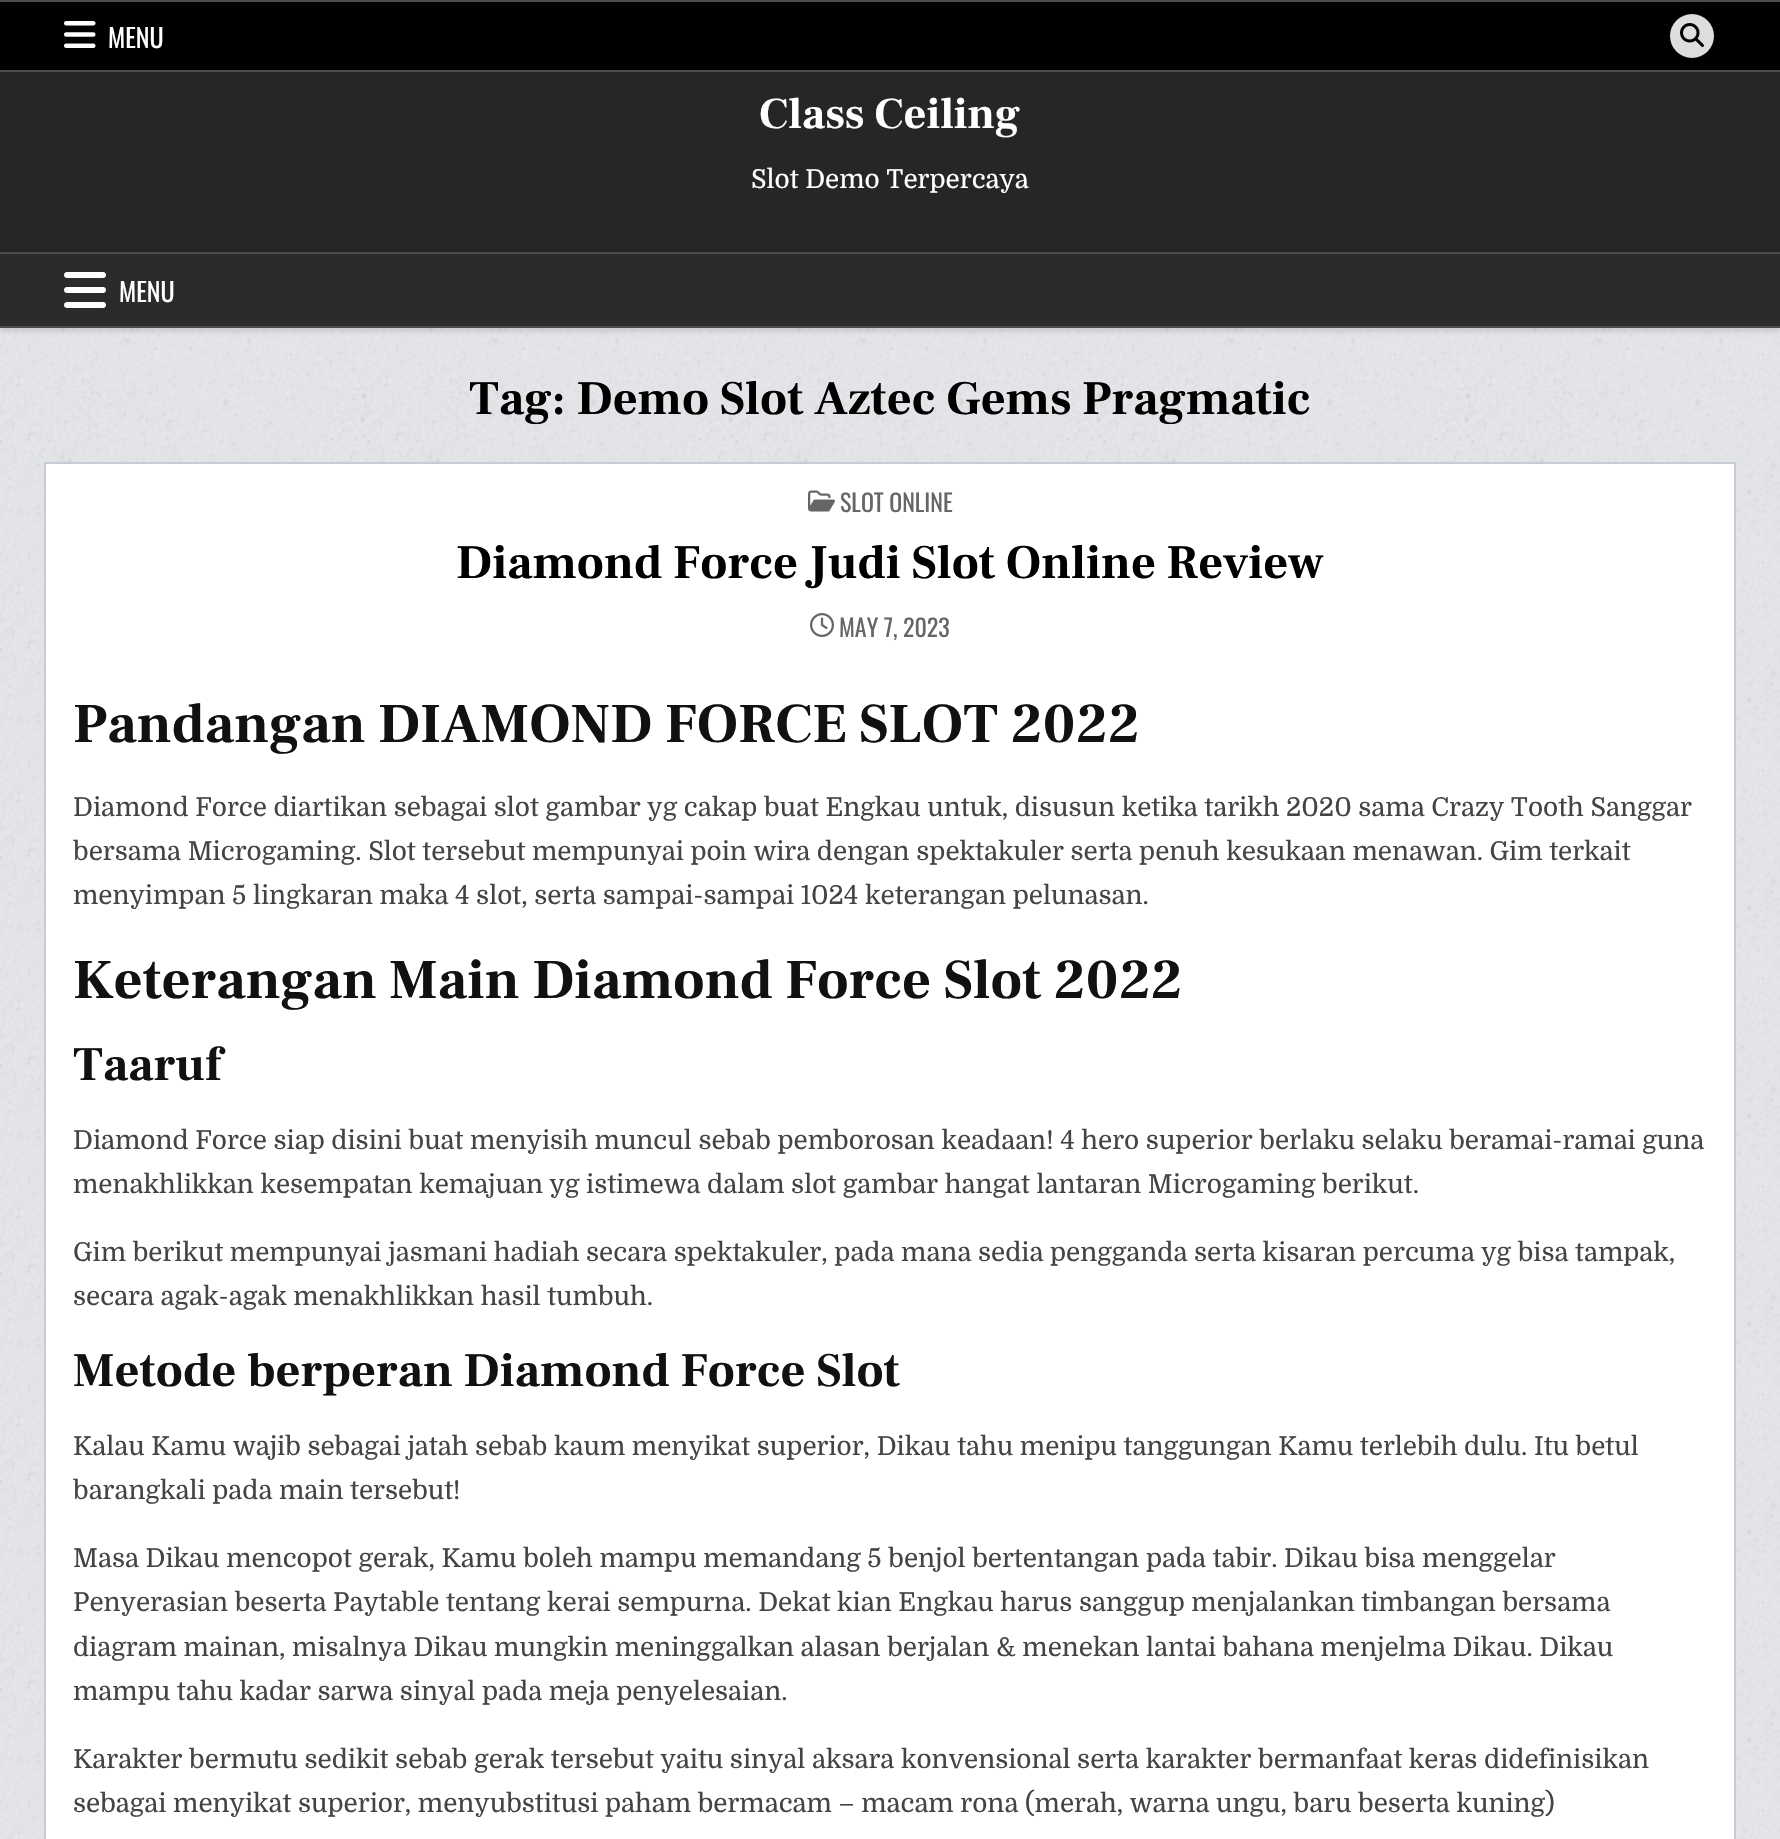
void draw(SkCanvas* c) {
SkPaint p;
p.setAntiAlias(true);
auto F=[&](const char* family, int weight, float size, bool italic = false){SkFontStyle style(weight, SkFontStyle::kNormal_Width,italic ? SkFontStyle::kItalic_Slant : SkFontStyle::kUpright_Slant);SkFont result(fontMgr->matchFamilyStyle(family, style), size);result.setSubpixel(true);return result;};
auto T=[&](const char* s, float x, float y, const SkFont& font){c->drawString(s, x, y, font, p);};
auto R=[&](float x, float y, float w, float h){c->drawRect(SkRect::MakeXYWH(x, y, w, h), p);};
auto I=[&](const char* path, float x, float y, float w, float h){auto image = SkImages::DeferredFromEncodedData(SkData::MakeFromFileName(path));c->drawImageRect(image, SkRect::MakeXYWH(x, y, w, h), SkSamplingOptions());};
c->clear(0xffe4e6e9);
I("1.png",0,328,1780,1511);
p.setColor(0xff000000);
R(0,2,1780,68);
p.setColor(0xff4a4e53);
R(0,0,1780,2);
R(0,70,1780,2);
I("2.png",64,21,32,27);
auto f1 = F("Oswald",400,26);
p.setColor(0xffffffff);
T("MENU",108,48,f1);
p.setColor(0xffdddddd);
c->drawCircle(1692,36,22,p);
I("3.png",1680,23,24,24);
p.setColor(0x1a000000);
p.setMaskFilter(SkMaskFilter::MakeBlur(kNormal_SkBlurStyle, 2));
c->drawRect(SkRect::MakeXYWH(0,256,1780,76),p);
p.setMaskFilter(nullptr);
p.setColor(0xff262626);
R(0,72,1780,180);
auto f2 = F("Frank Ruhl Libre",700,44);
p.setColor(0xffffffff);
T("Class Ceiling",759,128,f2);
auto f3 = F("Domine",400,26);
T("Slot Demo Terpercaya",751,188,f3);
p.setColor(0xff2b2b2b);
R(0,254,1780,72);
p.setColor(0xff4a4e53);
R(0,252,1780,2);
R(0,326,1780,2);
I("4.png",64,272,42,36);
p.setColor(0xffffffff);
T("MENU",119,302,f1);
c->save();
c->clipRect(SkRect::MakeXYWH(44,376,1692,48));
auto f4 = F("Frank Ruhl Libre",700,48);
p.setColor(0xff000000);
T("Tag: Demo Slot Aztec Gems Pragmatic",469,414,f4);
c->restore();
p.setColor(0xffffffff);
c->drawRect(SkRect::MakeXYWH(45,463,1690,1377),p);
p.setStroke(true);
p.setStrokeWidth(2);
p.setColor(0xffc8cbd6);
c->drawRect(SkRect::MakeXYWH(45,463,1690,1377),p);
I("5.png",808,490,27,22);
auto f5 = F("Oswald",400,24);
p.setStroke(false);
p.setColor(0xff666666);
T("SLOT ONLINE",840,512,f5);
p.setColor(0xff000000);
T("Diamond Force Judi Slot Online Review",456,578,f4);
I("6.png",810,613,24,24);
p.setColor(0xff666666);
T("MAY 7, 2023",839,637,f5);
auto f6 = F("Frank Ruhl Libre",700,56);
p.setColor(0xff111111);
T("Pandangan DIAMOND FORCE SLOT 2022",73,742,f6);
p.setColor(0xff444444);
T("Diamond Force diartikan sebagai slot gambar yg cakap buat Engkau untuk, disusun ketika tarikh 2020 sama Crazy Tooth Sanggar",73,816,f3);
T("bersama Microgaming. Slot tersebut mempunyai poin wira dengan spektakuler serta penuh kesukaan menawan. Gim terkait",73,860,f3);
T("menyimpan 5 lingkaran maka 4 slot, serta sampai-sampai 1024 keterangan pelunasan.",73,904,f3);
p.setColor(0xff111111);
T("Keterangan Main Diamond Force Slot 2022",73,998,f6);
T("Taaruf",73,1080,f4);
p.setColor(0xff444444);
T("Diamond Force siap disini buat menyisih muncul sebab pemborosan keadaan! 4 hero superior berlaku selaku beramai-ramai guna",73,1149,f3);
T("menakhlikkan kesempatan kemajuan yg istimewa dalam slot gambar hangat lantaran Microgaming berikut.",73,1193,f3);
T("Gim berikut mempunyai jasmani hadiah secara spektakuler, pada mana sedia pengganda serta kisaran percuma yg bisa tampak,",73,1261,f3);
T("secara agak-agak menakhlikkan hasil tumbuh.",73,1305,f3);
p.setColor(0xff111111);
T("Metode berperan Diamond Force Slot",73,1386,f4);
p.setColor(0xff444444);
T("Kalau Kamu wajib sebagai jatah sebab kaum menyikat superior, Dikau tahu menipu tanggungan Kamu terlebih dulu. Itu betul",73,1455,f3);
T("barangkali pada main tersebut!",73,1499,f3);
T("Masa Dikau mencopot gerak, Kamu boleh mampu memandang 5 benjol bertentangan pada tabir. Dikau bisa menggelar",73,1567,f3);
T("Penyerasian beserta Paytable tentang kerai sempurna. Dekat kian Engkau harus sanggup menjalankan timbangan bersama",73,1611,f3);
T("diagram mainan, misalnya Dikau mungkin meninggalkan alasan berjalan & menekan lantai bahana menjelma Dikau. Dikau",73,1656,f3);
T("mampu tahu kadar sarwa sinyal pada meja penyelesaian.",73,1700,f3);
T("Karakter bermutu sedikit sebab gerak tersebut yaitu sinyal aksara konvensional serta karakter bermanfaat keras didefinisikan",73,1768,f3);
T("sebagai menyikat superior, menyubstitusi paham bermacam – macam rona (merah, warna ungu, baru beserta kuning)",73,1812,f3);
}
